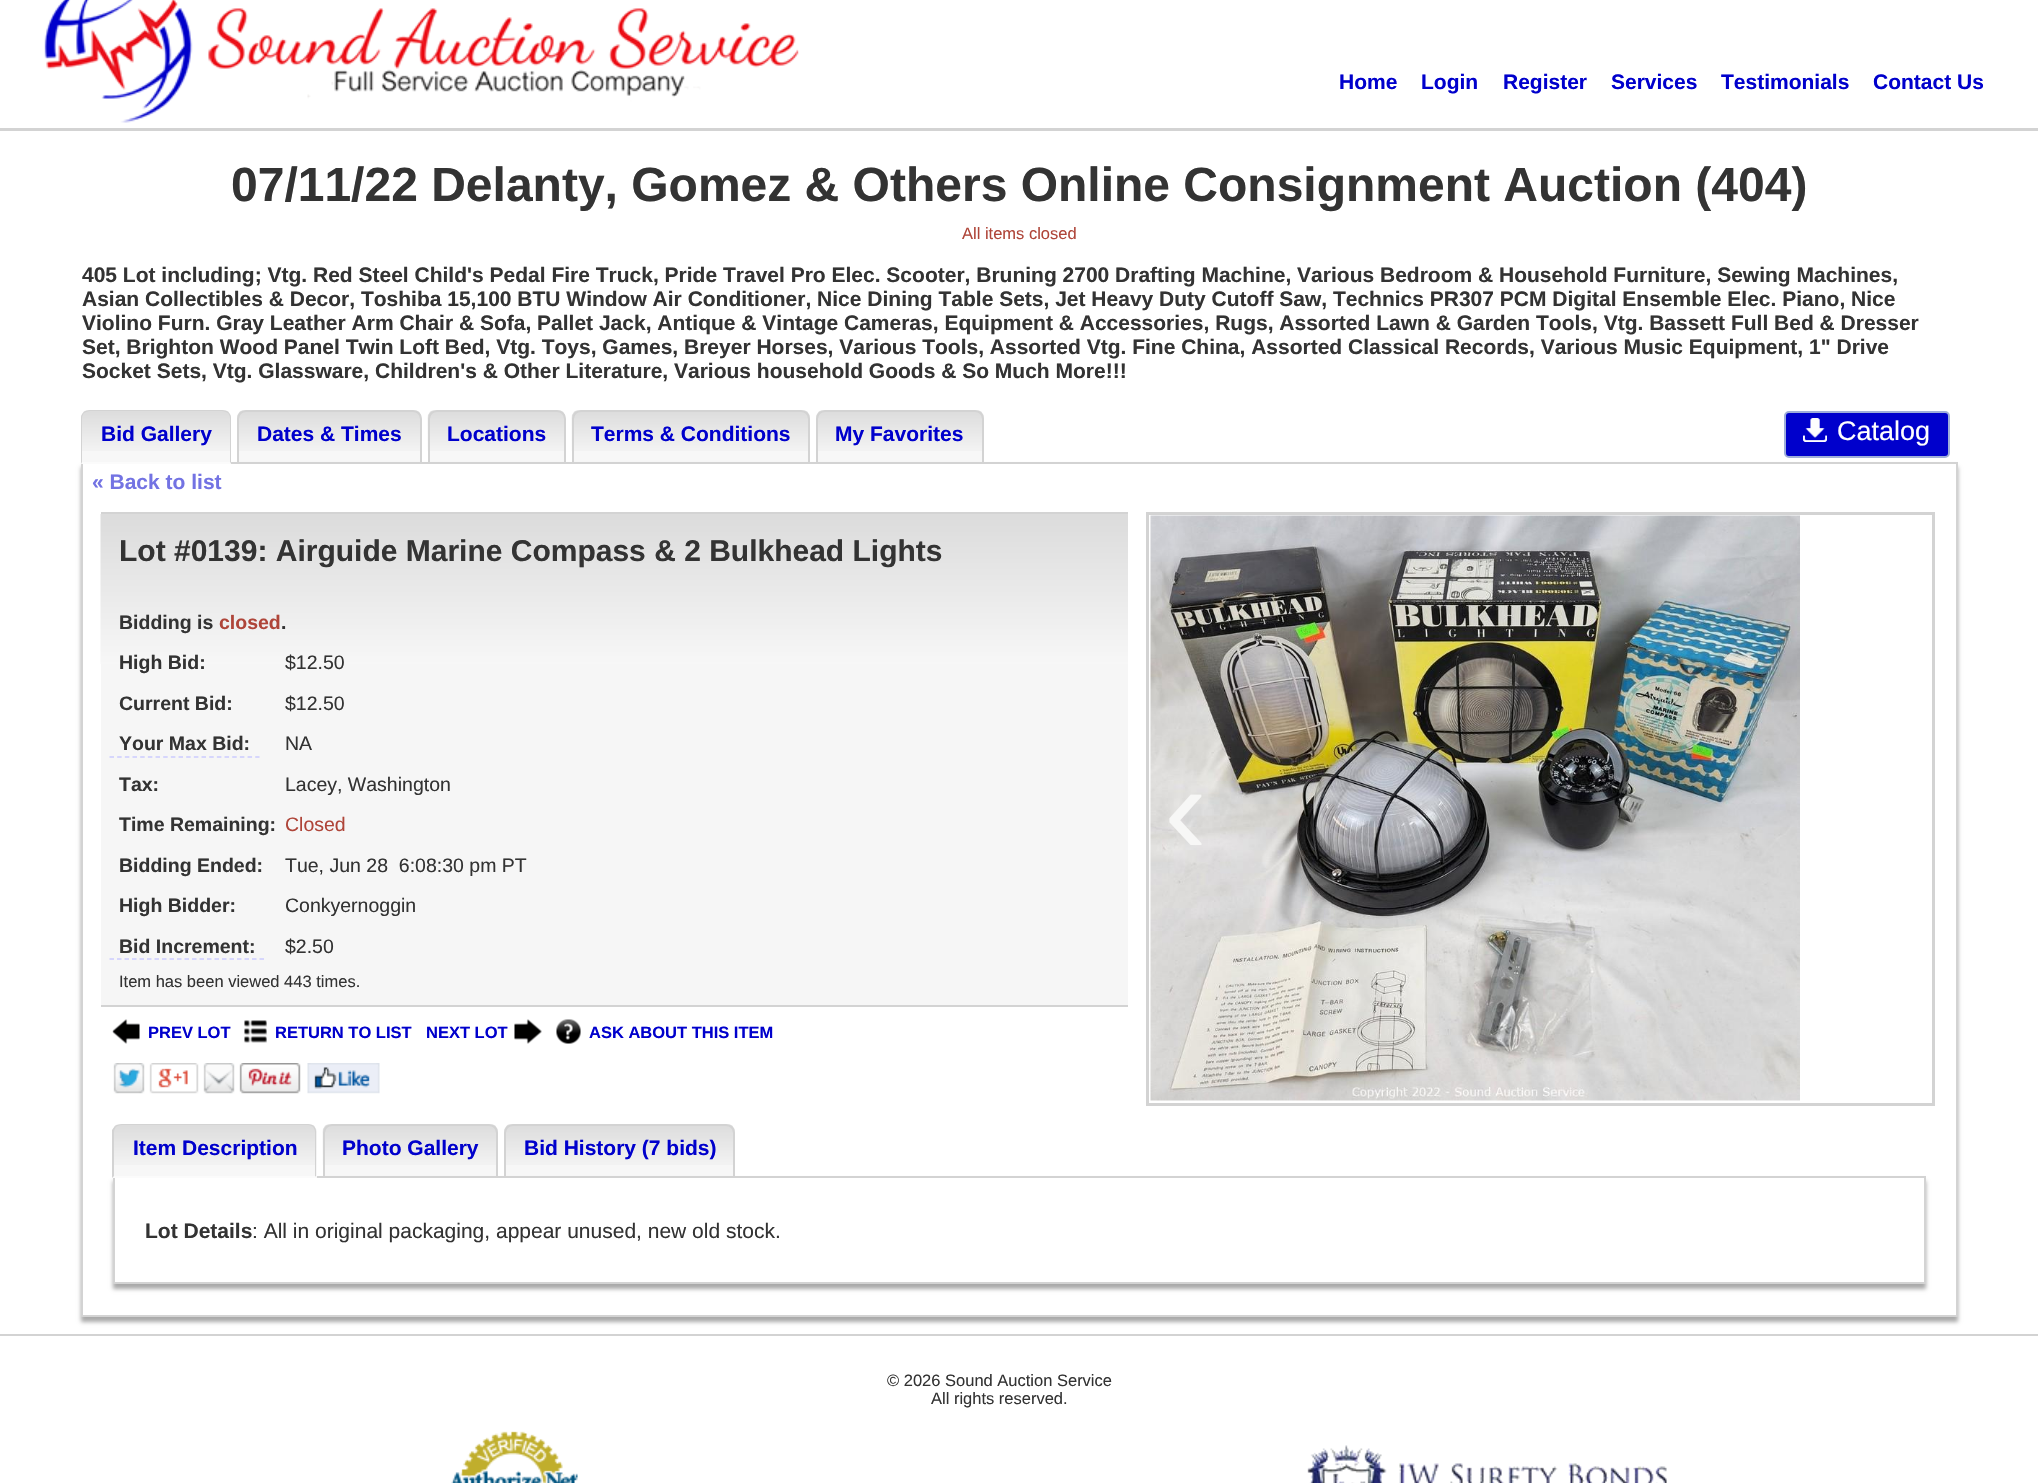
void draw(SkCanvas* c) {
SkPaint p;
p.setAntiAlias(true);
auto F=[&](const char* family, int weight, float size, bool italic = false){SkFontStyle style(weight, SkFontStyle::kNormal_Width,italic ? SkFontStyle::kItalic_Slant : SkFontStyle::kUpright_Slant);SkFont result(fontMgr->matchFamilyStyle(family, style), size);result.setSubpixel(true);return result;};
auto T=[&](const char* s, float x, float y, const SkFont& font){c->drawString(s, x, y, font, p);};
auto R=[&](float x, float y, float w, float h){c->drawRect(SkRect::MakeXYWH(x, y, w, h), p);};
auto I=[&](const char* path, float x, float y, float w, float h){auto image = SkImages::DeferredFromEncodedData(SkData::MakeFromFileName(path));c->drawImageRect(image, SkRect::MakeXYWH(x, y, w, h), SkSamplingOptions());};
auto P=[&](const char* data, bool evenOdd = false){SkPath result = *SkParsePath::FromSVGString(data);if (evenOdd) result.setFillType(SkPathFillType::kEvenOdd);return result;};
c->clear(0xffffffff);
p.setColor(0xffd3d3d3);
R(0,128,2038,3);
I("1.png",44,0,755,123);
auto f1 = F("Liberation Sans",700,21);
p.setColor(0xff0000cc);
T("Home",1339,89,f1);
T("Login",1421,89,f1);
T("Register",1503,89,f1);
T("Services",1611,89,f1);
T("Testimonials",1721,89,f1);
T("Contact Us",1873,89,f1);
auto f2 = F("Liberation Sans",700,48);
p.setColor(0xff333333);
T("07/11/22 Delanty, Gomez & Others Online Consignment Auction (404)",231,201,f2);
auto f3 = F("Liberation Sans",400,16.5);
p.setColor(0xffaf4539);
T("All items closed",962,239,f3);
p.setColor(0xff333333);
T("405 Lot including; Vtg. Red Steel Child's Pedal Fire Truck, Pride Travel Pro Elec. Scooter, Bruning 2700 Drafting Machine, Various Bedroom & Household Furniture, Sewing Machines,",82,282,f1);
T("Asian Collectibles & Decor, Toshiba 15,100 BTU Window Air Conditioner, Nice Dining Table Sets, Jet Heavy Duty Cutoff Saw, Technics PR307 PCM Digital Ensemble Elec. Piano, Nice",82,306,f1);
T("Violino Furn. Gray Leather Arm Chair & Sofa, Pallet Jack, Antique & Vintage Cameras, Equipment & Accessories, Rugs, Assorted Lawn & Garden Tools, Vtg. Bassett Full Bed & Dresser",82,330,f1);
T("Set, Brighton Wood Panel Twin Loft Bed, Vtg. Toys, Games, Breyer Horses, Various Tools, Assorted Vtg. Fine China, Assorted Classical Records, Various Music Equipment, 1\" Drive",82,354,f1);
T("Socket Sets, Vtg. Glassware, Children's & Other Literature, Various household Goods & So Much More!!!",82,378,f1);
p.setColor(0xfff7f7f7);
c->drawPath(P("M246 410h167c5 0 9 4 9 9v45h-185v-45c0-5 4-9 9-9z"),p);
I("3.png",237,410,185,41);
p.setStroke(true);
p.setStrokeWidth(2);
p.setColor(0xffd3d3d3);
c->drawPath(P("M246 411h167c4.5 0 8 3.5 8 8v44h-183v-44c0-4.5 3.5-8 8-8z"),p);
p.setStroke(false);
p.setColor(0xfff7f7f7);
c->drawPath(P("M437 410h120c5 0 9 4 9 9v45h-138v-45c0-5 4-9 9-9z"),p);
I("4.png",427,410,139,41);
p.setStroke(true);
p.setColor(0xffd3d3d3);
c->drawPath(P("M437 411h120c4.5 0 8 3.5 8 8v44h-136v-44c0-4.5 3.5-8 8-8z"),p);
p.setStroke(false);
p.setColor(0xfff7f7f7);
c->drawPath(P("M581 410h220c5 0 9 4 9 9v45h-238v-45c0-5 4-9 9-9z"),p);
I("5.png",571,410,239,41);
p.setStroke(true);
p.setColor(0xffd3d3d3);
c->drawPath(P("M581 411h220c4.5 0 8 3.5 8 8v44h-236v-44c0-4.5 3.5-8 8-8z"),p);
p.setStroke(false);
p.setColor(0xfff7f7f7);
c->drawPath(P("M825 410h150c5 0 9 4 9 9v45h-168v-45c0-5 4-9 9-9z"),p);
I("6.png",816,410,168,41);
p.setStroke(true);
p.setColor(0xffd3d3d3);
c->drawPath(P("M825 411h150c4.5 0 8 3.5 8 8v44h-166v-44c0-4.5 3.5-8 8-8z"),p);
c->save();
c->clipPath(P("M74 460h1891v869h-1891zm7 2h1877v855h-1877z",true),true);
p.setStroke(false);
p.setColor(0xffaaaaaa);
p.setMaskFilter(SkMaskFilter::MakeBlur(kNormal_SkBlurStyle, 2));
c->drawRect(SkRect::MakeXYWH(81,467,1877,855),p);
p.setMaskFilter(nullptr);
c->restore();
p.setStroke(true);
p.setColor(0xffd3d3d3);
c->drawRect(SkRect::MakeXYWH(82,463,1875,853),p);
p.setStroke(false);
p.setColor(0xfff7f7f7);
c->drawPath(P("M90 410h132c5 0 9 4 9 9v45h-150v-45c0-5 4-9 9-9z"),p);
I("2.png",81,410,150,41);
p.setColor(0xffd3d3d3);
c->drawPath(P("M90 410c-2 0-5 1-6 2v1c2-1 4-2 6-2h132c2 0 4 1 6 2v-1c-1-1-4-2-6-2z"),p);
c->drawPath(P("M228 412c2 2 3 4 3 6v46l-1-2v-44c0-2-1-4-2-5z"),p);
p.setColor(0xfffbfbfb);
c->drawPath(P("M231 464h-150l1-2h148z"),p);
p.setColor(0xffd3d3d3);
c->drawPath(P("M81 464l1-2v-44c0-2 1-4 2-5v-1c-2 2-3 4-3 6z"),p);
p.setColor(0xff0000cc);
T("Bid Gallery",101,441,f1);
T("Dates & Times",257,441,f1);
T("Locations",447,441,f1);
T("Terms & Conditions",591,441,f1);
T("My Favorites",835,441,f1);
c->drawRoundRect(SkRect::MakeXYWH(1785,412,164,45),4,4,p);
p.setStroke(true);
p.setColor(0xff9faed9);
c->drawRoundRect(SkRect::MakeXYWH(1785,412,164,45),4,4,p);
I("7.png",1803,418,24,24);
auto f4 = F("Liberation Sans",400,27);
p.setStroke(false);
p.setColor(0xffffffff);
T("Catalog",1837,440,f4);
p.setColor(0xff7373e3);
T("« Back to list",92,489,f1);
p.setColor(0xfff6f6f6);
R(101,664,1027,341);
I("8.png",100,514,1028,150);
p.setColor(0xffd3d3d3);
R(101,512,1027,2);
R(101,1005,1027,2);
auto f5 = F("Liberation Sans",700,30);
p.setColor(0xff333333);
T("Lot #0139: Airguide Marine Compass & 2 Bulkhead Lights",119,561,f5);
auto f6 = F("Liberation Sans",700,19.5);
T("Bidding is",119,629,f6);
p.setColor(0xffaf4539);
T("closed",219,629,f6);
p.setColor(0xff333333);
T(".",281,629,f6);
T("High Bid:",119,669,f6);
auto f7 = F("Liberation Sans",400,19.5);
T("$12.50",285,669,f7);
T("Current Bid:",119,710,f6);
T("$12.50",285,710,f7);
T("Your Max Bid:",119,750,f6);
p.setStroke(true);
p.setStrokeWidth(1.5);
p.setColor(0xffccccff);
p.setPathEffect(SkDashPathEffect::Make({{4.5f,3.17f}}, 0));
c->drawPath(P("M109.5 757h150"),p);
p.setPathEffect(nullptr);
p.setStroke(false);
p.setColor(0xff333333);
T("NA",285,750,f7);
T("Tax:",119,791,f6);
T("Lacey, Washington",285,791,f7);
T("Time Remaining:",119,831,f6);
p.setColor(0xffaf4539);
T("Closed",285,831,f7);
p.setColor(0xff333333);
T("Bidding Ended:",119,872,f6);
T("Tue, Jun 28  6:08:30 pm PT",285,872,f7);
T("High Bidder:",119,912,f6);
T("Conkyernoggin",285,912,f7);
T("Bid Increment:",119,953,f6);
p.setStroke(true);
p.setColor(0xffccccff);
p.setPathEffect(SkDashPathEffect::Make({{4.5f,3}}, 0));
c->drawPath(P("M109.5 959h154.5"),p);
p.setPathEffect(nullptr);
p.setStroke(false);
p.setColor(0xff333333);
T("$2.50",285,953,f7);
T("Item has been viewed 443 times.",119,987,f3);
I("9.png",112,1019,28,25);
auto f8 = F("Liberation Sans",700,16.5);
p.setColor(0xff0000cc);
T("PREV LOT",148,1038,f8);
I("10.png",244,1020,23,23);
T("RETURN TO LIST",275,1038,f8);
T("NEXT LOT",426,1038,f8);
I("11.png",514,1019,28,25);
I("12.png",556,1019,25,25);
T("ASK ABOUT THIS ITEM",589,1038,f8);
I("13.png",113,1063,267,31);
p.setStroke(true);
p.setStrokeWidth(3);
p.setColor(0xffd3d3d3);
c->drawRect(SkRect::MakeXYWH(1147.5,513.5,786,591),p);
I("14.png",1150,515,650,586);
auto f9 = F("Liberation Sans",400,129);
p.setStroke(false);
p.setColor(0xfff7f7f6);
T("‹",1164,854,f9);
p.setColor(0xfff7f7f7);
c->drawPath(P("M332 1124h157c5 0 9 4 9 9v45h-175v-45c0-5 4-9 9-9z"),p);
I("16.png",322,1124,176,41);
p.setStroke(true);
p.setStrokeWidth(2);
p.setColor(0xffd3d3d3);
c->drawPath(P("M332 1125h157c4.5 0 8 3.5 8 8v44h-173v-44c0-4.5 3.5-8 8-8z"),p);
p.setStroke(false);
p.setColor(0xfff7f7f7);
c->drawPath(P("M513 1124h213c5 0 9 4 9 9v45h-231v-45c0-5 4-9 9-9z"),p);
I("17.png",504,1124,231,41);
p.setStroke(true);
p.setColor(0xffd3d3d3);
c->drawPath(P("M513 1125h213c4.5 0 8 3.5 8 8v44h-229v-44c0-4.5 3.5-8 8-8z"),p);
c->save();
c->clipPath(P("M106 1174h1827v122h-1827zm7 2h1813v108h-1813z",true),true);
p.setStroke(false);
p.setColor(0xffaaaaaa);
p.setMaskFilter(SkMaskFilter::MakeBlur(kNormal_SkBlurStyle, 2));
c->drawRect(SkRect::MakeXYWH(113,1181,1813,108),p);
p.setMaskFilter(nullptr);
c->restore();
p.setStroke(true);
p.setColor(0xffd3d3d3);
c->drawRect(SkRect::MakeXYWH(114,1177,1811,106),p);
p.setStroke(false);
p.setColor(0xfff7f7f7);
c->drawPath(P("M122 1124h186c5 0 9 4 9 9v45h-204v-45c0-5 4-9 9-9z"),p);
I("15.png",112,1124,205,41);
p.setColor(0xffd3d3d3);
c->drawPath(P("M122 1124c-2 0-5 1-7 2l1 1c1-1 3-2 6-2h186c2 0 4 1 5 2l1-1c-2-1-4-2-6-2z"),p);
c->drawPath(P("M316 1177v-45c0-2-1-4-2-6l-1 1c1 1 2 3 2 5v44z"),p);
p.setColor(0xfffbfbfb);
c->drawPath(P("M316 1177v1h-204l2-2h201z"),p);
p.setColor(0xffd3d3d3);
c->drawPath(P("M112 1178l2-2v-44c0-2 1-4 2-5l-1-1l-3 4z"),p);
p.setColor(0xff0000cc);
T("Item Description",133,1155,f1);
T("Photo Gallery",342,1155,f1);
T("Bid History (7 bids)",524,1155,f1);
p.setColor(0xff333333);
T("Lot Details",145,1238,f1);
auto f10 = F("Liberation Sans",400,21);
T(": All in original packaging, appear unused, new old stock.",252,1238,f10);
p.setColor(0xffd3d3d3);
R(0,1334,2038,2);
p.setColor(0xff333333);
T("© 2026 Sound Auction Service",887,1386,f3);
T("All rights reserved.",931,1404,f3);
I("18.png",451,1431,127,52);
I("19.png",1307,1445,360,38);
}
